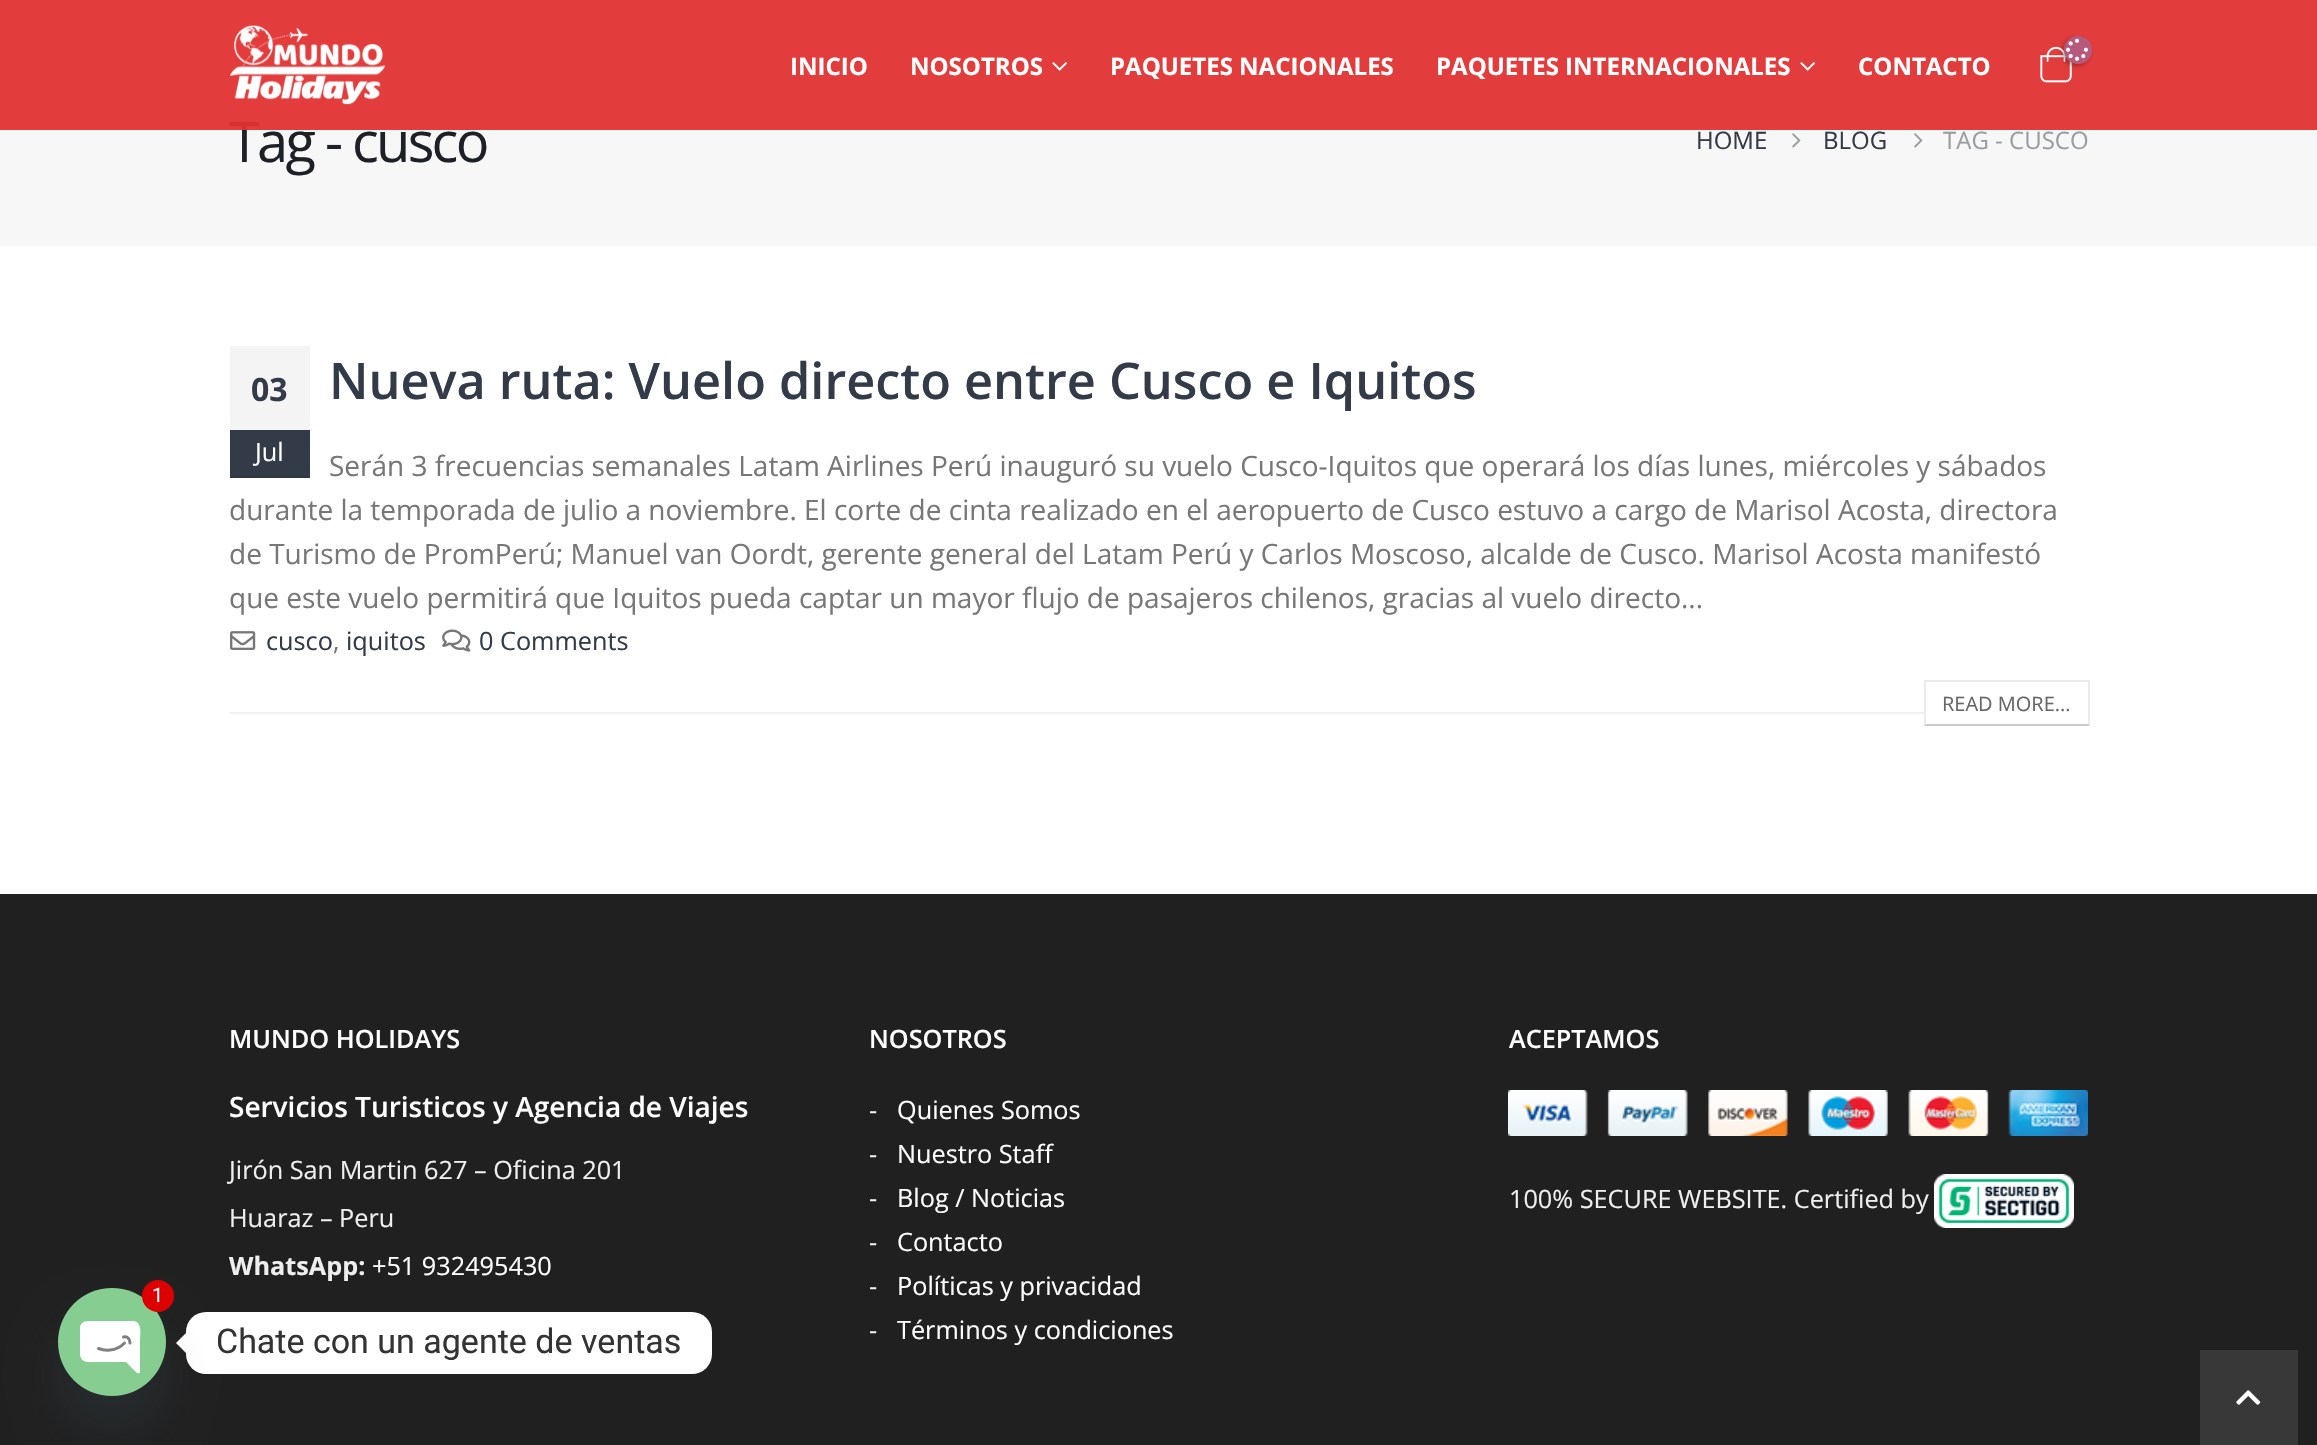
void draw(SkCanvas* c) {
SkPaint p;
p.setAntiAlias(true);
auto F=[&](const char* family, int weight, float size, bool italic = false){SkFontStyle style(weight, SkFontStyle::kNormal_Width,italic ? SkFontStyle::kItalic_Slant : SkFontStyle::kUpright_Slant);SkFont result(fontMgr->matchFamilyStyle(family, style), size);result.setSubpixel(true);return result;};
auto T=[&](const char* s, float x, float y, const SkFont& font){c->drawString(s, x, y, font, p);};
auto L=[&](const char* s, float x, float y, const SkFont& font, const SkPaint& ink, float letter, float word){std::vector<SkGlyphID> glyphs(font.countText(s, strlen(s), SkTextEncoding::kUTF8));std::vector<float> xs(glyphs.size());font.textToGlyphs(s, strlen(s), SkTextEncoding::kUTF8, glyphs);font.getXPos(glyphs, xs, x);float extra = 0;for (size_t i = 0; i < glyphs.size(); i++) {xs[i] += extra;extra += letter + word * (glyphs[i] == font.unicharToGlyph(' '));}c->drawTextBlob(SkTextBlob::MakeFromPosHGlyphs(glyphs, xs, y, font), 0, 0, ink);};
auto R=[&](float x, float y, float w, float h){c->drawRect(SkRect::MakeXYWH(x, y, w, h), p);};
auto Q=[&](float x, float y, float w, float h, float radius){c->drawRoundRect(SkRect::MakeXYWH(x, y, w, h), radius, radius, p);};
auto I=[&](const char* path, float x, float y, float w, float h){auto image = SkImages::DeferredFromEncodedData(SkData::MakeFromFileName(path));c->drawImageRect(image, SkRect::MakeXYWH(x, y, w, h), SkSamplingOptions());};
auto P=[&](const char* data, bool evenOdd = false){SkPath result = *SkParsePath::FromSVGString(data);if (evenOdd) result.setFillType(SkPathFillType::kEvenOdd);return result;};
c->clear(0xffffffff);
p.setColor(0xfff7f7f7);
R(0,34,2317,212);
auto f1 = F("Open Sans",400,56);
p.setColor(0xff1d2127);
L("Tag - cusco",229,162,f1,p,-2.75,0);
p.setColor(0xf2e13132);
R(0,0,2317,130);
I("1.png",230,25,156,80);
auto f2 = F("Open Sans",700,24);
p.setColor(0xffffffff);
T("INICIO",790,75,f2);
T("NOSOTROS",910,75,f2);
I("2.png",1052,62,15,9);
T("PAQUETES NACIONALES",1110,75,f2);
T("PAQUETES INTERNACIONALES",1436,75,f2);
I("2.png",1800,62,15,9);
T("CONTACTO",1858,75,f2);
I("4.png",2040,46,32,37);
p.setColor(0x4d000000);
p.setMaskFilter(SkMaskFilter::MakeBlur(kNormal_SkBlurStyle, 2));
c->drawRoundRect(SkRect::MakeXYWH(2062,38,28,28),14,14,p);
p.setMaskFilter(nullptr);
p.setColor(0xffb7597c);
c->drawCircle(2078,50,14,p);
I("3.png",2066,38,22,23);
auto f3 = F("Open Sans",400,24);
p.setColor(0xff333b48);
T("HOME",1696,149,f3);
I("5.png",1792,133,9,15);
T("BLOG",1823,149,f3);
I("5.png",1914,133,9,15);
p.setColor(0xff999da3);
T("TAG - CUSCO",1943,149,f3);
p.setColor(0xfff0f0f0);
R(230,712,1694,2);
auto f4 = F("Open Sans",600,50.4);
p.setColor(0xff333b48);
T("Nueva ruta: Vuelo directo entre Cusco e Iquitos",329,399,f4);
auto f5 = F("Open Sans",400,28);
p.setColor(0xff777777);
T("Serán 3 frecuencias semanales Latam Airlines Perú inauguró su vuelo Cusco-Iquitos que operará los días lunes, miércoles y sábados",329,476,f5);
T("durante la temporada de julio a noviembre. El corte de cinta realizado en el aeropuerto de Cusco estuvo a cargo de Marisol Acosta, directora",229,520,f5);
T("de Turismo de PromPerú; Manuel van Oordt, gerente general del Latam Perú y Carlos Moscoso, alcalde de Cusco. Marisol Acosta manifestó",229,564,f5);
T("que este vuelo permitirá que Iquitos pueda captar un mayor flujo de pasajeros chilenos, gracias al vuelo directo...",229,608,f5);
p.setColor(0xfff4f4f4);
R(230,346,80,84);
auto f6 = F("Open Sans",700,32);
p.setColor(0xff333b48);
T("03",251,401,f6);
R(230,430,80,46);
p.setColor(0xff2f3743);
R(230,476,80,2);
auto f7 = F("Open Sans",400,25.25);
p.setColor(0xffffffff);
T("Jul",255,461,f7);
I("6.png",230,631,26,19);
p.setColor(0xff333b48);
T("cusco",266,650,f7);
p.setColor(0xff777777);
T(",",333,650,f7);
p.setColor(0xff333b48);
T("iquitos",346,650,f7);
I("7.png",442,629,29,23);
T("0 Comments",479,650,f7);
p.setColor(0xffebebeb);
c->drawPath(P("M1924 680h166l-2 2h-162z"),p);
p.setColor(0x14000000);
c->drawPath(P("M2090 680v46l-2-2v-42z"),p);
p.setColor(0x33000000);
c->drawPath(P("M2090 726h-166l2-2h162z"),p);
p.setColor(0x14000000);
c->drawPath(P("M1924 726v-46l2 2v42z"),p);
auto f8 = F("Open Sans",400,20);
p.setColor(0xff666666);
T("READ MORE...",1942,711,f8);
p.setColor(0xff202020);
R(0,894,2317,551);
auto f9 = F("Open Sans",600,25.25);
p.setColor(0xffffffff);
T("MUNDO HOLIDAYS",229,1048,f9);
auto f10 = F("Open Sans",600,28);
T("Servicios Turisticos y Agencia de Viajes",229,1117,f10);
p.setColor(0xffeeeeee);
T("Jirón San Martin 627 – Oficina 201",229,1179,f7);
T("Huaraz – Peru",229,1227,f7);
auto f11 = F("Open Sans",700,25.25);
T("WhatsApp:",229,1275,f11);
p.setColor(0xffffffff);
T("+51 932495430",372,1275,f7);
T("NOSOTROS",869,1048,f9);
p.setColor(0xffeeeeee);
T("-",869,1119,f7);
p.setColor(0xffffffff);
T("Quienes Somos",897,1119,f7);
p.setColor(0xffeeeeee);
T("-",869,1163,f7);
p.setColor(0xffffffff);
T("Nuestro Staff",897,1163,f7);
p.setColor(0xffeeeeee);
T("-",869,1207,f7);
p.setColor(0xffffffff);
T("Blog / Noticias",897,1207,f7);
p.setColor(0xffeeeeee);
T("-",869,1251,f7);
p.setColor(0xffffffff);
T("Contacto",897,1251,f7);
p.setColor(0xffeeeeee);
T("-",869,1295,f7);
p.setColor(0xffffffff);
T("Políticas y privacidad",897,1295,f7);
p.setColor(0xffeeeeee);
T("-",869,1339,f7);
p.setColor(0xffffffff);
T("Términos y condiciones",897,1339,f7);
T("ACEPTAMOS",1509,1048,f9);
I("8.png",1508,1090,580,46);
p.setColor(0xffeeeeee);
T("100% SECURE WEBSITE. Certified by",1509,1208,f7);
I("9.png",1934,1174,140,54);
p.setColor(0xffffffff);
Q(186,1312,526,62,20);
c->drawPath(P("M186 1333v20l-10-10z"),p);
p.setColor(0x2949687e);
p.setMaskFilter(SkMaskFilter::MakeBlur(kNormal_SkBlurStyle, 24));
c->drawRoundRect(SkRect::MakeXYWH(58,1320,108,108),54,54,p);
p.setMaskFilter(nullptr);
p.setColor(0xff86cd91);
c->drawCircle(112,1342,54,p);
p.setColor(0xffffffff);
c->drawPath(P("M133 1321h-45c-5 0-8 3-8 7v26c0 5 4 8 8 8h38l7 7c1 1 6 7 7 3v-29c0-7 3-22-7-22z"),p);
p.setStroke(true);
p.setStrokeWidth(3);
p.setStrokeCap(SkPaint::kRound_Cap);
p.setStrokeJoin(SkPaint::kRound_Join);
p.setColor(0xff808080);
c->drawPath(P("M98.5 1348.5c5 2 17 4 26-5.5m5.5 0c0-2.5-1.5-7-6.5-6"),p);
p.setStroke(false);
p.setColor(0xffdd0000);
c->drawCircle(158,1296,16,p);
auto f12 = F("Roboto",400,20);
p.setColor(0xffffffff);
T("1",152,1302,f12);
auto f13 = F("Roboto",400,34);
p.setColor(0xff333333);
T("Chate con un agente de ventas",216,1353,f13);
p.setColor(0xff383838);
R(2200,1350,98,95);
I("10.png",2236,1390,25,15);
}
